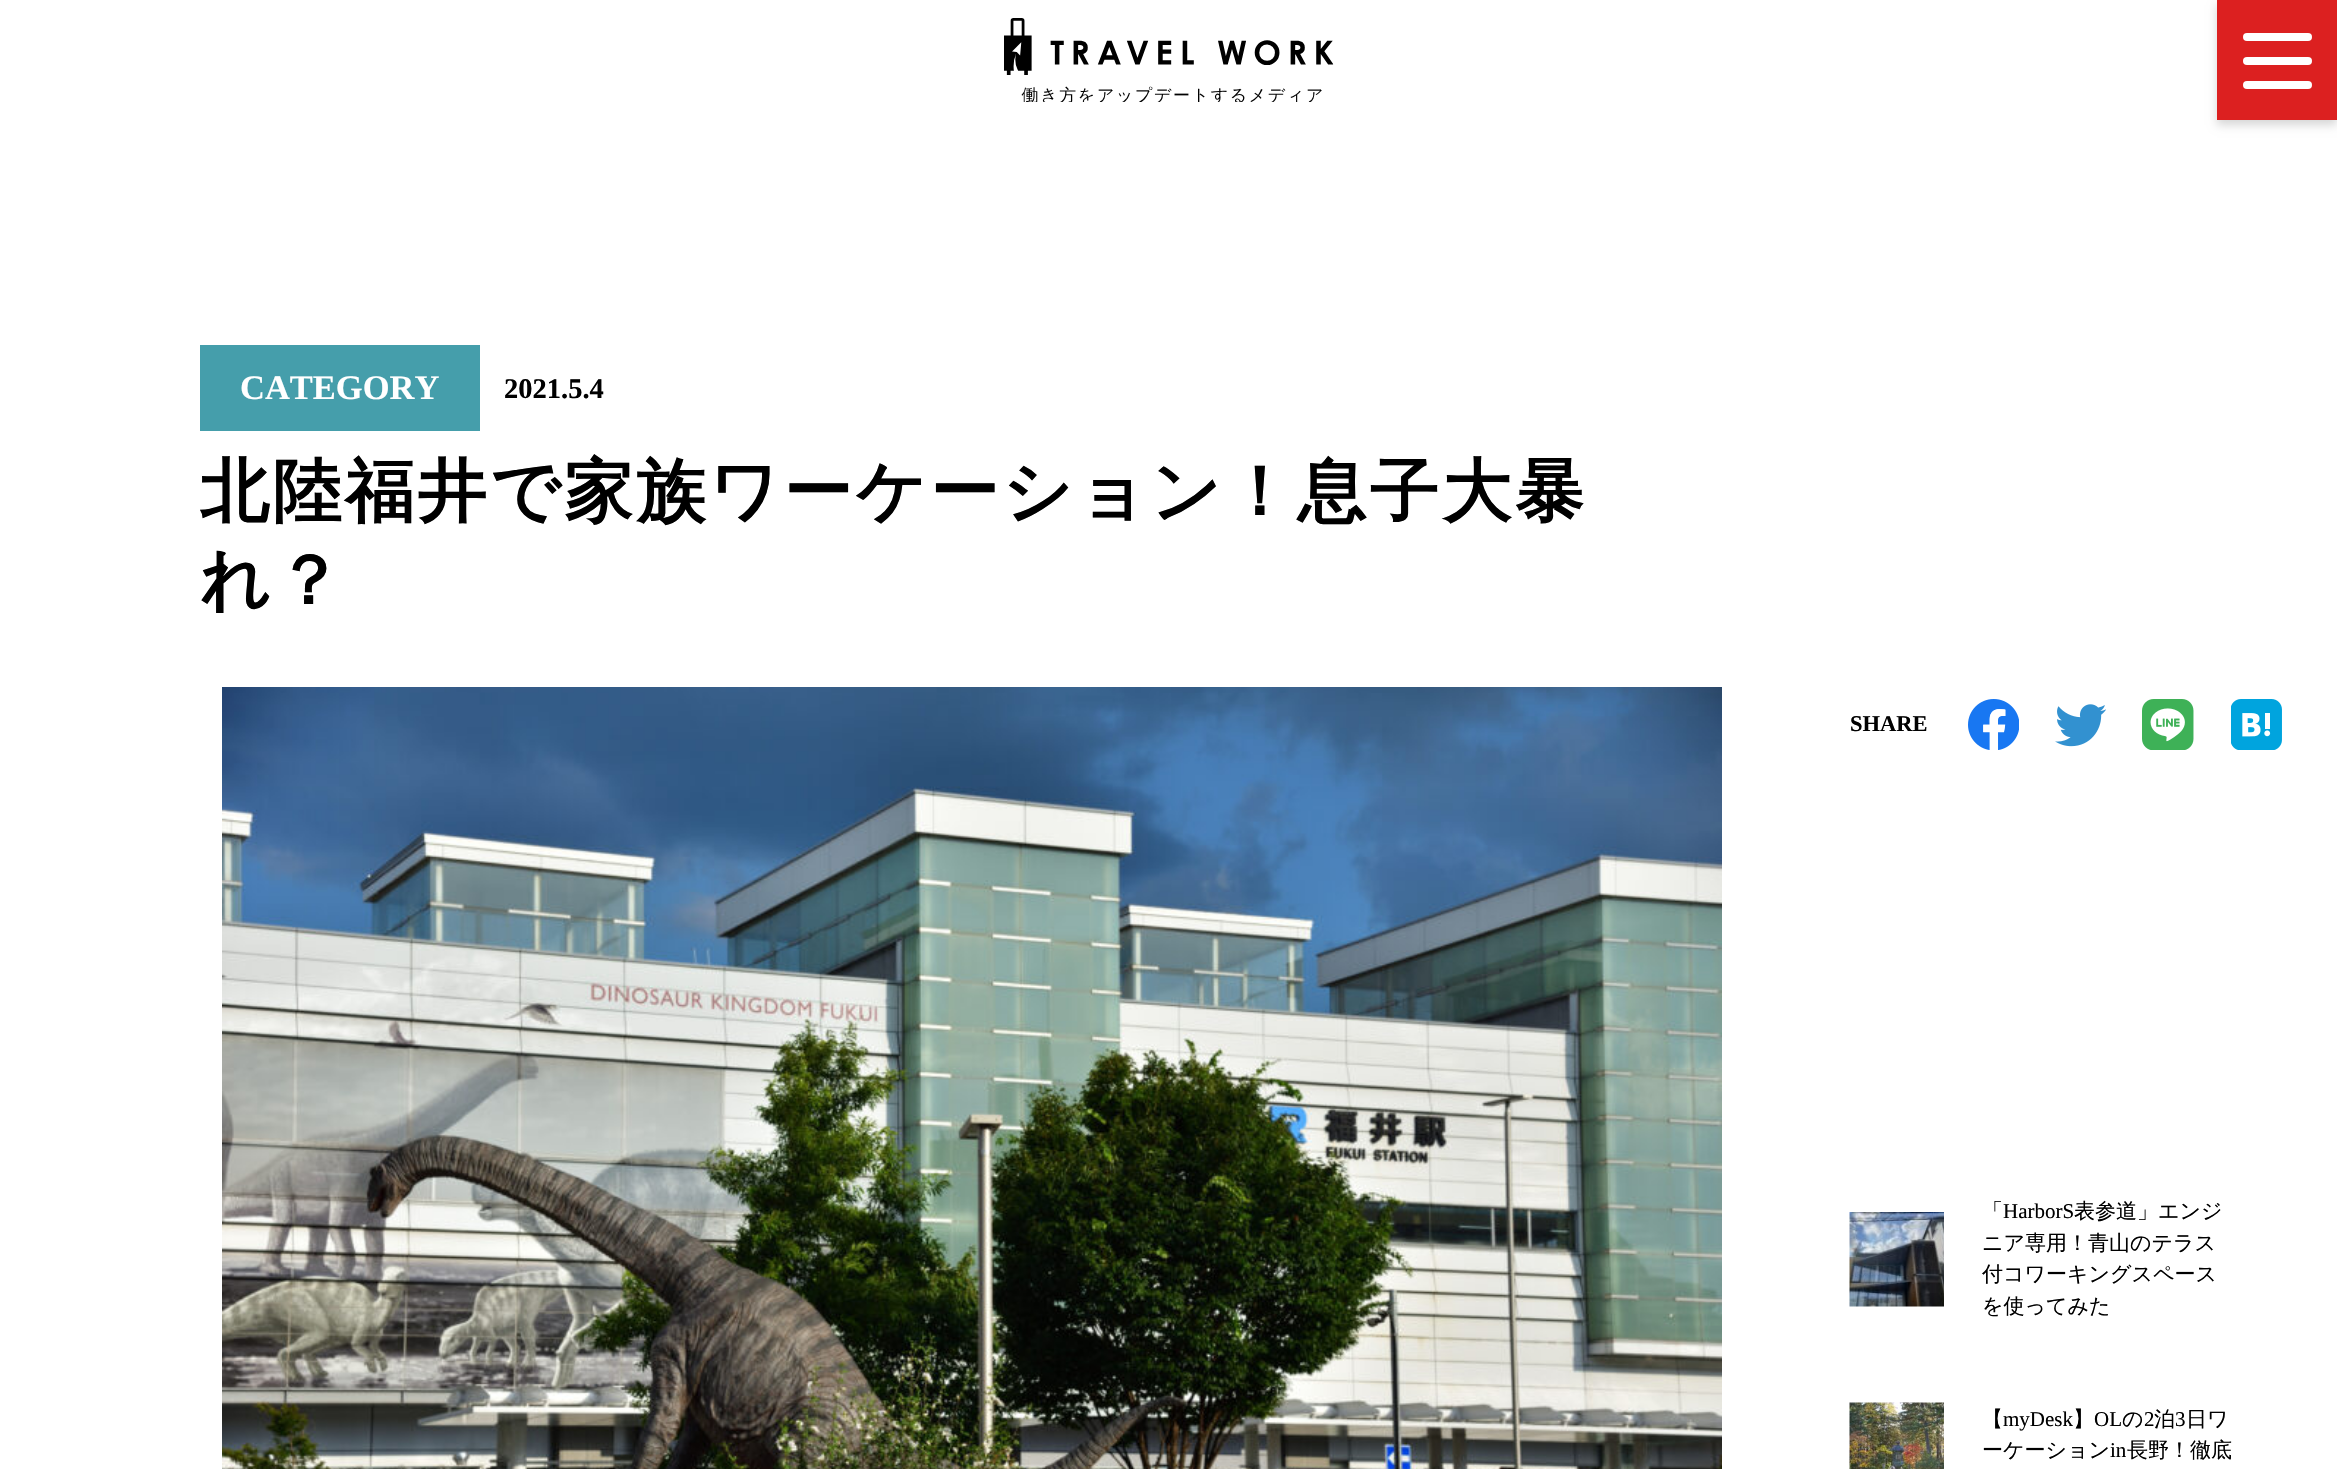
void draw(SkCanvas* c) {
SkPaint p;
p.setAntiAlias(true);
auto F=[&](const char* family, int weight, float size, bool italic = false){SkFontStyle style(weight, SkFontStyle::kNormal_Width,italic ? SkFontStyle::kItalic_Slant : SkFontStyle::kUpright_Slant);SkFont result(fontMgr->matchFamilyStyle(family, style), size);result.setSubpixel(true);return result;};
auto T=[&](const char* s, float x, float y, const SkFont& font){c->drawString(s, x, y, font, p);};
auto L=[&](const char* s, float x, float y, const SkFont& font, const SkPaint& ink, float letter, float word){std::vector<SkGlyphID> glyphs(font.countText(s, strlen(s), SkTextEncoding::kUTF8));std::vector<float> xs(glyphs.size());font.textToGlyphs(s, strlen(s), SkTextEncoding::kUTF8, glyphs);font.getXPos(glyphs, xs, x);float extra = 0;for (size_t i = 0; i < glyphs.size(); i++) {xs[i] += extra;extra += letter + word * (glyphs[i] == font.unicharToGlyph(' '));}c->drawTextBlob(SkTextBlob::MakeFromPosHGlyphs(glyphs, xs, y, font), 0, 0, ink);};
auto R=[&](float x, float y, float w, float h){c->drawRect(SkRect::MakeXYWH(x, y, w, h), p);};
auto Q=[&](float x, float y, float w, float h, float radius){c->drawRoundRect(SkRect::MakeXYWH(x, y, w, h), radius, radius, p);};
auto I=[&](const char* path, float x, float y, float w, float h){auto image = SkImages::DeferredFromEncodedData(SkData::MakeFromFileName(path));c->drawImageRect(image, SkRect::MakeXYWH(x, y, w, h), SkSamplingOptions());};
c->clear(0xffffffff);
I("1.png",1004,18,330,84);
p.setColor(0x29000000);
p.setMaskFilter(SkMaskFilter::MakeBlur(kNormal_SkBlurStyle, 4.5));
c->drawRect(SkRect::MakeXYWH(2217,5,120,120),p);
p.setMaskFilter(nullptr);
p.setColor(0xffdc2020);
R(2217,0,120,120);
p.setColor(0xffffffff);
Q(2243,57,69,8,4);
Q(2243,33,69,8,4);
Q(2243,81,69,8,4);
p.setColor(0xff459eab);
R(200,345,280,86);
auto f1 = F("Liberation Serif",700,34.5);
p.setColor(0xffffffff);
T("CATEGORY",240,399,f1);
auto f2 = F("Liberation Serif",700,28.5);
p.setColor(0xff000000);
T("2021.5.4",504,398,f2);
auto f3 = F("WenQuanYi Zen Hei",700,69);
L("北陸福井で家族ワーケーション！息子大暴",200,515,f3,p,3.5,0);
L("れ？",200,604,f3,p,3.5,0);
I("2.png",222,687,1500,782);
auto f4 = F("Liberation Serif",700,22.5);
T("SHARE",1850,731,f4);
I("3.png",1968,699,51,51);
I("4.png",2055,704,51,43);
I("5.png",2142,699,52,51);
I("6.png",2231,699,51,51);
I("7.png",1849,1212,95,95);
auto f5 = F("WenQuanYi Zen Hei",500,21);
T("「",1982,1218,f5);
auto f6 = F("Liberation Serif",400,21);
T("HarborS",2003,1218,f6);
T("表参道」エンジ",2074,1218,f5);
T("ニア専用！青山のテラス",1982,1250,f5);
T("付コワーキングスペース",1982,1281,f5);
T("を使ってみた",1982,1313,f5);
I("8.png",1849,1402,95,67);
T("【",1982,1426,f5);
T("myDesk",2003,1426,f6);
T("】",2073,1426,f5);
T("OL",2094,1426,f6);
T("の",2122,1426,f5);
T("2",2144,1426,f6);
T("泊",2154,1426,f5);
T("3",2175,1426,f6);
T("日ワ",2186,1426,f5);
T("ーケーション",1982,1457,f5);
T("in",2110,1457,f6);
T("長野！徹底",2127,1457,f5);
}
